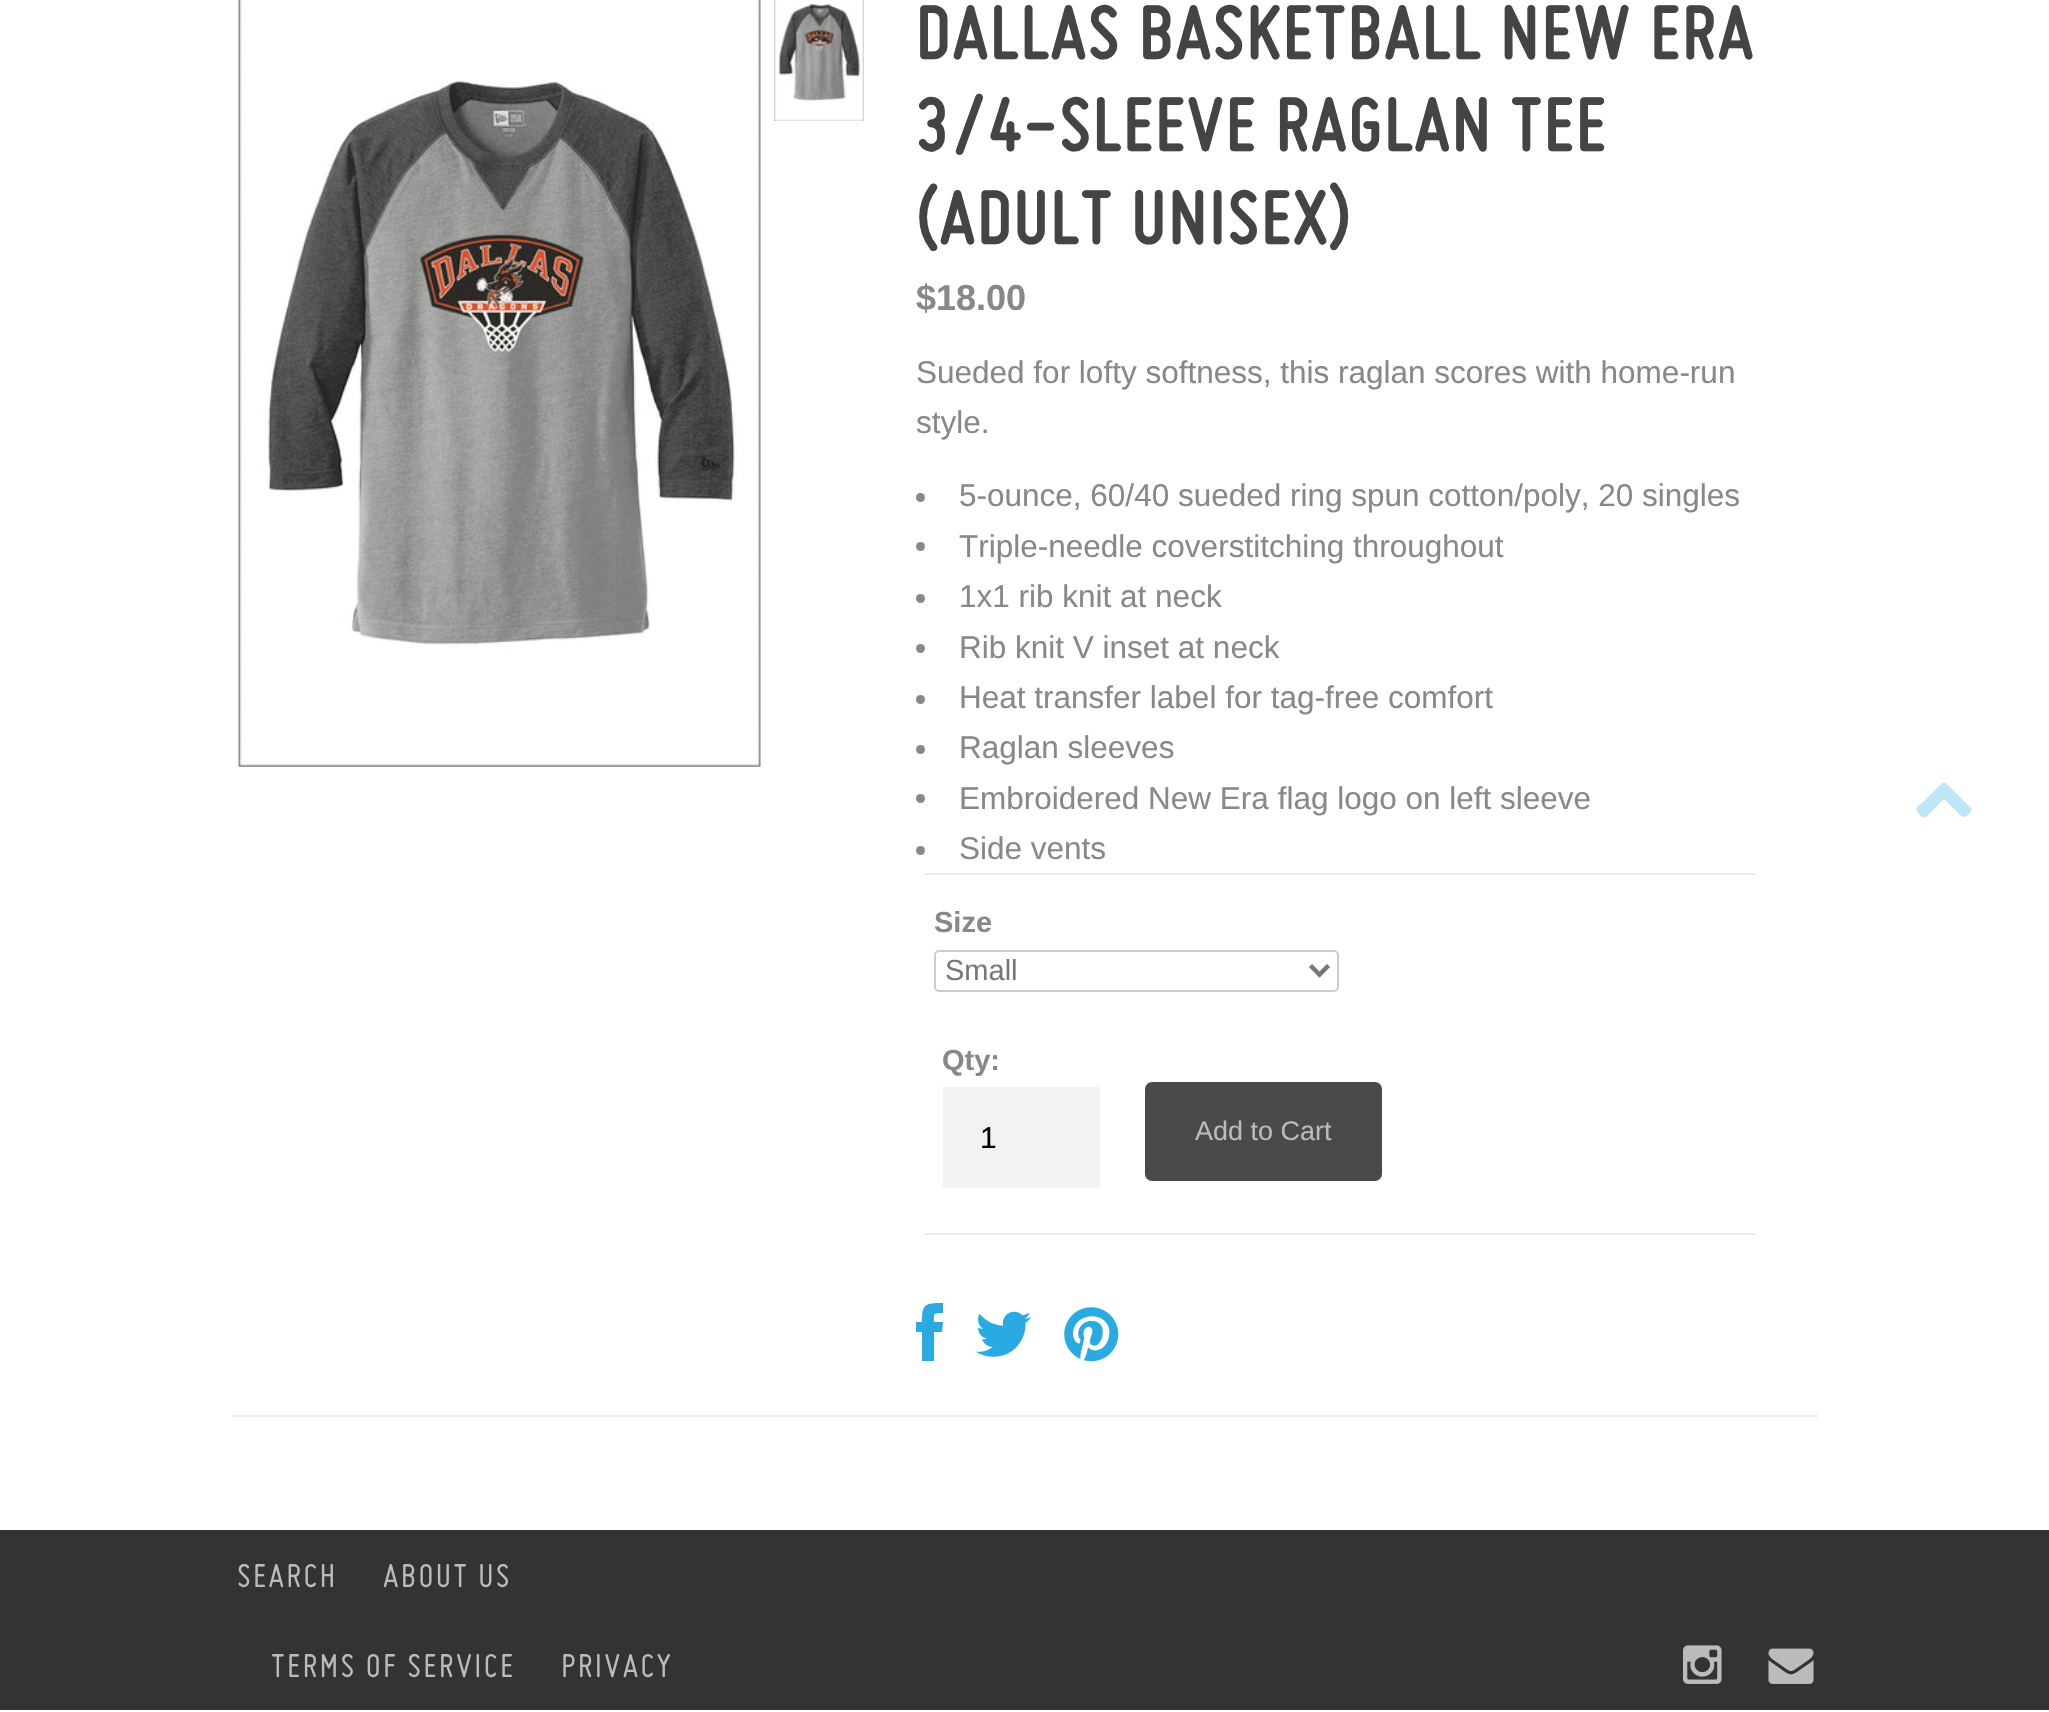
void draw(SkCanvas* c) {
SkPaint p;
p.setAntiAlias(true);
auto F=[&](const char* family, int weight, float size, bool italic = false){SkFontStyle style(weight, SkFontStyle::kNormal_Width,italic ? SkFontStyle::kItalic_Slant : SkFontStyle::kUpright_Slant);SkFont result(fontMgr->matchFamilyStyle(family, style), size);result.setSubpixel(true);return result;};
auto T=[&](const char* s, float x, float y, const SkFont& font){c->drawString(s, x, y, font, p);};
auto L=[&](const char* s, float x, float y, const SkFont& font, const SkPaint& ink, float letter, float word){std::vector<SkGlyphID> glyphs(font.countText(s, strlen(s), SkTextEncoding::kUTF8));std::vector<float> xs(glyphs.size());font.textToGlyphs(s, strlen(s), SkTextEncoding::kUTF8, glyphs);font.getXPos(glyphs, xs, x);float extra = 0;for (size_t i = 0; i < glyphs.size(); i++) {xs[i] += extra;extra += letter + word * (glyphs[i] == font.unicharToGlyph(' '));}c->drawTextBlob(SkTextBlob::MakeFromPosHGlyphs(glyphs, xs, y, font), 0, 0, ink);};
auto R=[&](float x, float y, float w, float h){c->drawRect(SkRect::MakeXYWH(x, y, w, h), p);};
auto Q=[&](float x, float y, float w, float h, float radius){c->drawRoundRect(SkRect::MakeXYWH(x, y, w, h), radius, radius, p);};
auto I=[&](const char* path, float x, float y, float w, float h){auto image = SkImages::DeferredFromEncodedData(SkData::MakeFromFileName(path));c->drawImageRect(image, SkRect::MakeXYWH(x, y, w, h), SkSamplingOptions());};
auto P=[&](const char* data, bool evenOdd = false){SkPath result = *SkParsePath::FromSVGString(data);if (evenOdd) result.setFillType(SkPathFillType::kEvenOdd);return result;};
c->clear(0xffffffff);
I("1.png",238,0,523,767);
I("2.png",774,0,90,121);
auto f1 = F("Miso",700,81,true);
p.setColor(0xff444444);
L("DALLAS BASKETBALL NEW ERA",916,58,f1,p,2.25,0);
L("3/4-SLEEVE RAGLAN TEE",916,150,f1,p,2.25,0);
L("(ADULT UNISEX)",916,243,f1,p,2.25,0);
auto f2 = F("Liberation Sans",700,36);
p.setColor(0xff888888);
T("$18.00",916,310,f2);
auto f3 = F("Liberation Sans",400,31.5);
T("Sueded for lofty softness, this raglan scores with home-run",916,383,f3);
T("style.",916,433,f3);
c->drawCircle(920.5,497.5,4.5,p);
T("5-ounce, 60/40 sueded ring spun cotton/poly, 20 singles",959,506,f3);
c->drawCircle(920.5,546.5,4.5,p);
T("Triple-needle coverstitching throughout",959,557,f3);
c->drawCircle(920.5,598.5,4.5,p);
T("1x1 rib knit at neck",959,607,f3);
c->drawCircle(920.5,648.5,4.5,p);
T("Rib knit V inset at neck",959,658,f3);
c->drawCircle(920.5,699.5,4.5,p);
T("Heat transfer label for tag-free comfort",959,708,f3);
c->drawCircle(920.5,749.5,4.5,p);
T("Raglan sleeves",959,758,f3);
c->drawCircle(920.5,798.5,4.5,p);
T("Embroidered New Era flag logo on left sleeve",959,809,f3);
c->drawCircle(920.5,850.5,4.5,p);
T("Side vents",959,859,f3);
p.setColor(0xffeeeeee);
R(925,873,830,2);
R(925,1233,830,2);
auto f4 = F("Liberation Sans",700,29);
p.setColor(0xff888888);
T("Size",934,932,f4);
p.setStroke(true);
p.setStrokeWidth(2);
p.setColor(0xffcccccc);
c->drawRoundRect(SkRect::MakeXYWH(935,951,403,40),4,4,p);
p.setStrokeWidth(4.5);
p.setColor(0xff777777);
c->drawPath(P("M1310.5 965.5l9 9l9-9"),p);
auto f5 = F("Liberation Sans",400,29);
p.setStroke(false);
T("Small",945,980,f5);
p.setColor(0xff888888);
T("Qty:",942,1070,f4);
p.setColor(0xfff2f2f2);
R(943,1087,157,101);
auto f6 = F("Liberation Sans",400,30);
p.setColor(0xff000000);
T("1",980,1148,f6);
p.setColor(0xff4b4a4a);
Q(1145,1082,237,99,7);
auto f7 = F("Liberation Sans",400,27);
p.setColor(0xffbbbbbb);
T("Add to Cart",1195,1140,f7);
p.setColor(0xff29aae2);
c->drawPath(P("M934 1322h9l-1 10h-8v29h-12v-29h-6v-10h6c0-18 3-19 21-19v10c-10 0-9 0-9 9z"),p);
I("3.png",976,1311,55,46);
I("4.png",1064,1307,55,55);
p.setColor(0xffeeeeee);
R(232,1415,1586,2);
p.setColor(0xffbfe6f6);
c->drawPath(P("M1970 807c2 2 2 4 0 6c-7 7-8 4-15-3l-11-11l-11 11c-7 7-9 11-15 3c-4-4 1-8 4-10l15-15c7-7 7-7 14 0z"),p);
p.setColor(0xff333333);
R(0,1530,2049,180);
auto f8 = F("Miso",400,36,true);
p.setColor(0xffbbbbbb);
L("SEARCH",237,1587,f8,p,2.25,0);
L("ABOUT US",383,1587,f8,p,2.25,0);
L("TERMS OF SERVICE",271,1677,f8,p,2.25,0);
L("PRIVACY",561,1677,f8,p,2.25,0);
I("5.png",1683,1645,39,39);
I("6.png",1768,1648,46,36);
}
